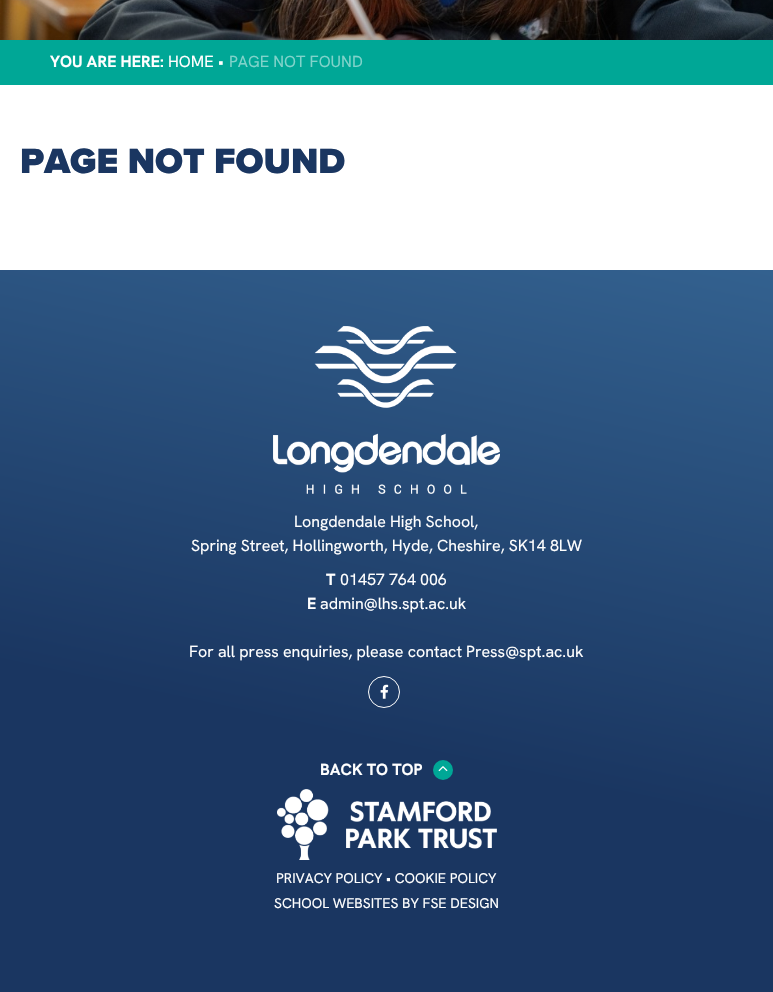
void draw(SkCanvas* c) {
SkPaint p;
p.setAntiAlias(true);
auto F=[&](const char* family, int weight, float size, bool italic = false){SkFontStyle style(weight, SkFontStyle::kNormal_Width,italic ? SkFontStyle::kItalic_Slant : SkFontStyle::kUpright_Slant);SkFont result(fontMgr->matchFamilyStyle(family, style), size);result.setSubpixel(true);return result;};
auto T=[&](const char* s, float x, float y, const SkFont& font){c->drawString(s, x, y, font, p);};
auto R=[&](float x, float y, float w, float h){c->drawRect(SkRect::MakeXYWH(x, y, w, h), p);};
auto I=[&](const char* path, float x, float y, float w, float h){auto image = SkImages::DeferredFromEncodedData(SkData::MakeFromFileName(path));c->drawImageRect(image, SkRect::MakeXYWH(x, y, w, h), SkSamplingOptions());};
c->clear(0xffffffff);
I("1.png",0,0,773,40);
p.setColor(0xff00a796);
R(0,40,773,45);
auto f1 = F("Hanken Grotesk",700,16);
p.setColor(0xffffffff);
T("YOU ARE HERE:",50,67,f1);
auto f2 = F("Hanken Grotesk",400,16);
T("HOME",168,67,f2);
T("•",218,67,f2);
p.setColor(0xff80d3ca);
T("PAGE NOT FOUND",229,67,f2);
auto f3 = F("Proxima Nova",900,36.5);
p.setColor(0xff1a3661);
T("PAGE NOT FOUND",20,173,f3);
{
const SkColor colors[] = {0xff1a3661,0xff33618f};
const float stops[] = {.37,1};
const SkPoint ends[] = {{296,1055}, {477,207}};
p.setShader(SkGradientShader::MakeLinear(ends, colors, stops, 2, SkTileMode::kClamp));
p.setAlpha(255);
}
R(0,270,773,722);
I("2.png",273,326,227,168);
p.setShader(nullptr);
p.setColor(0xffffffff);
T("Longdendale High School,",294,527,f2);
T("Spring Street, Hollingworth, Hyde, Cheshire, SK14 8LW",191,551,f2);
T("T",326,585,f1);
T("01457 764 006",340,585,f2);
T("E",307,609,f1);
T("admin@lhs.spt.ac.uk",320,609,f2);
T("For all press enquiries, please contact Press@spt.ac.uk",189,657,f2);
p.setStroke(true);
p.setStrokeWidth(1);
c->drawCircle(384,692,15.5,p);
I("3.png",380,684,9,15);
p.setStroke(false);
T("BACK TO TOP",320,775,f1);
p.setColor(0xff00a796);
c->drawCircle(443,770,10,p);
I("4.png",438,766,10,6);
I("5.png",277,789,220,71);
auto f4 = F("Hanken Grotesk",400,14);
p.setColor(0xffffffff);
T("PRIVACY POLICY • COOKIE POLICY",276,883,f4);
T("SCHOOL WEBSITES BY FSE DESIGN",274,908,f4);
}
